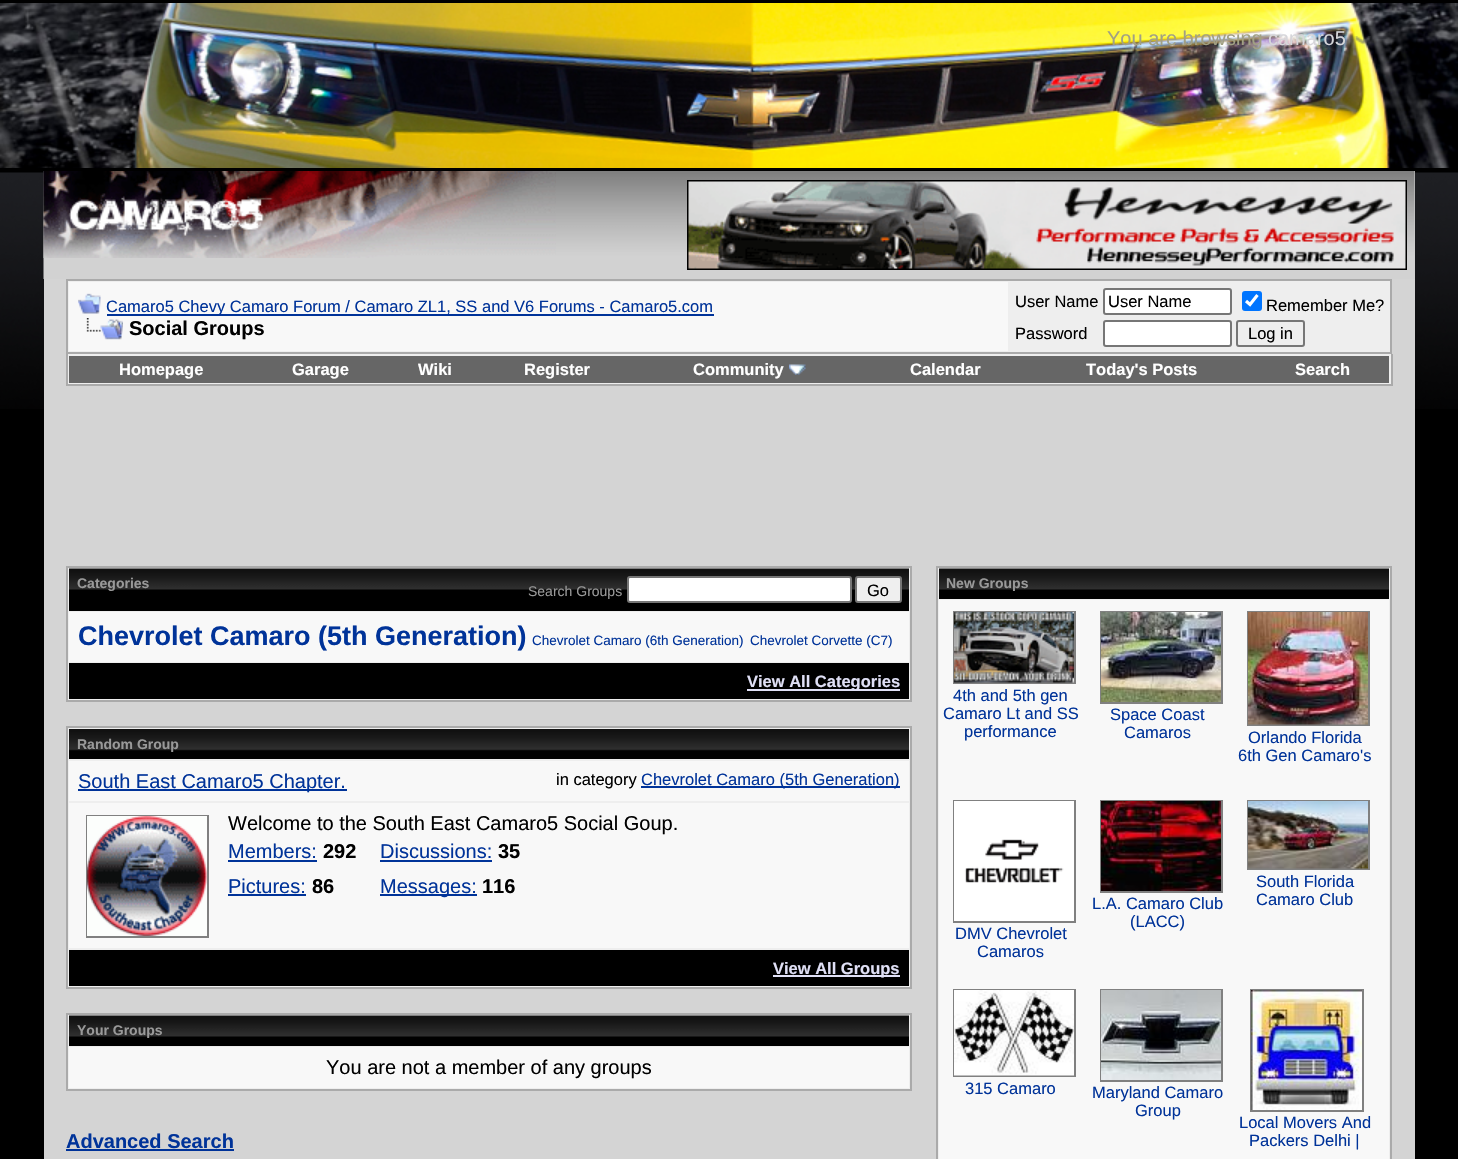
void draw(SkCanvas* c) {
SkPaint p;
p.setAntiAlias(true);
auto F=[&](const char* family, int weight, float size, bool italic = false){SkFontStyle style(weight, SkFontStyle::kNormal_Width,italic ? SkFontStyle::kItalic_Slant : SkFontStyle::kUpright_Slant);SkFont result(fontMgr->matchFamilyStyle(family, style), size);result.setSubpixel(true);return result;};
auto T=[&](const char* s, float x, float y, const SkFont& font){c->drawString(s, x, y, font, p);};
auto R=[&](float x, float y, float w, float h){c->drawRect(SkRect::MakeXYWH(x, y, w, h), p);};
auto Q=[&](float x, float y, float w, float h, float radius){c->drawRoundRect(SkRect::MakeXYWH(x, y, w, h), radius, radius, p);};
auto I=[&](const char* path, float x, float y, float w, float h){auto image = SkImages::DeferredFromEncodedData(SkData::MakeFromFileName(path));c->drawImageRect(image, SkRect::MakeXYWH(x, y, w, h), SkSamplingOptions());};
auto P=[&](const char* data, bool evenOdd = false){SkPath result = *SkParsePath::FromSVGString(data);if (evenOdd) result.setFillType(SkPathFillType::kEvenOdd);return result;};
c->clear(0xff000000);
I("1.png",0,172,1458,237);
I("2.png",0,3,1458,165);
auto f1 = F("Liberation Sans",400,20);
p.setColor(0xffa1a084);
T("You are browsing",1107,45,f1);
p.setColor(0xffd6d6da);
T("camaro5",1268,45,f1);
I("3.png",1354,36,17,9);
p.setColor(0xffd1d1d1);
R(1414,171,1,108);
I("4.png",43,171,1372,108);
I("5.png",43,171,513,87);
I("6.png",687,180,720,90);
p.setColor(0xffd4d4d4);
R(44,279,1371,880);
p.setColor(0xffeeeeee);
c->drawRect(SkRect::MakeXYWH(67,280,1324,73),p);
p.setStroke(true);
p.setStrokeWidth(2);
p.setColor(0xffaaaaaa);
c->drawRect(SkRect::MakeXYWH(67,280,1324,73),p);
p.setStroke(false);
p.setColor(0xfff8f8f8);
R(69,282,939,69);
I("7.png",78,293,23,21);
p.setColor(0xff003399);
R(107,314,607,2);
auto f2 = F("Liberation Sans",400,16.5);
T("Camaro5 Chevy Camaro Forum / Camaro ZL1, SS and V6 Forums - Camaro5.com",106,312,f2);
I("8.png",86,318,37,22);
auto f3 = F("Liberation Sans",700,20);
p.setColor(0xff000000);
T("Social Groups",129,335,f3);
T("User Name",1015,307,f2);
p.setColor(0xffffffff);
c->drawRoundRect(SkRect::MakeXYWH(1104,289,127,25),2,2,p);
p.setStroke(true);
p.setColor(0xff767676);
c->drawRoundRect(SkRect::MakeXYWH(1104,289,127,25),2,2,p);
p.setStroke(false);
p.setColor(0xff000000);
T("User Name",1108,307,f2);
p.setColor(0xff0075ff);
Q(1242,291,20,20,3);
p.setStroke(true);
p.setStrokeWidth(3.1);
p.setColor(0xffffffff);
c->drawPath(P("M1246 301l4 3.5l7.5-9.5"),p);
p.setStroke(false);
p.setColor(0xff000000);
T("Remember Me?",1266,311,f2);
T("Password",1015,339,f2);
p.setColor(0xffffffff);
c->drawRoundRect(SkRect::MakeXYWH(1104,321,127,25),2,2,p);
p.setStroke(true);
p.setStrokeWidth(2);
p.setColor(0xff767676);
c->drawRoundRect(SkRect::MakeXYWH(1104,321,127,25),2,2,p);
c->drawRoundRect(SkRect::MakeXYWH(1237,321,67,25),2,2,p);
p.setStroke(false);
p.setColor(0xff000000);
T("Log in",1248,339,f2);
p.setColor(0xffeeeeee);
R(68,354,1323,30);
p.setColor(0xffaaaaaa);
R(1391,354,2,32);
R(66,384,1326,2);
R(66,354,2,32);
p.setColor(0xff666666);
R(69,356,1320,27);
auto f4 = F("Liberation Sans",700,16.5);
p.setColor(0xffffffff);
T("Homepage",119,375,f4);
T("Garage",292,375,f4);
T("Wiki",418,375,f4);
T("Register",524,375,f4);
T("Community",693,375,f4);
I("9.png",789,364,17,11);
T("Calendar",910,375,f4);
T("Today's Posts",1086,375,f4);
T("Search",1295,375,f4);
p.setColor(0xffeeeeee);
c->drawRect(SkRect::MakeXYWH(67,567,844,134),p);
p.setStroke(true);
p.setColor(0xffaaaaaa);
c->drawRect(SkRect::MakeXYWH(67,567,844,134),p);
p.setStroke(false);
p.setColor(0xff000000);
R(69,590,840,21);
I("10.png",69,568,840,22);
auto f5 = F("Liberation Sans",700,14);
p.setColor(0xff999999);
T("Categories",77,588,f5);
auto f6 = F("Liberation Sans",400,14);
T("Search Groups",528,596,f6);
p.setColor(0xffffffff);
c->drawRoundRect(SkRect::MakeXYWH(628,577,223,25),2,2,p);
p.setStroke(true);
p.setColor(0xff767676);
c->drawRoundRect(SkRect::MakeXYWH(628,577,223,25),2,2,p);
p.setStroke(false);
p.setColor(0xffefefef);
c->drawRoundRect(SkRect::MakeXYWH(856,577,45,25),2,2,p);
p.setStroke(true);
p.setColor(0xff767676);
c->drawRoundRect(SkRect::MakeXYWH(856,577,45,25),2,2,p);
p.setStroke(false);
p.setColor(0xff000000);
T("Go",867,596,f2);
p.setColor(0xfff8f8f8);
R(69,612,840,50);
auto f7 = F("Liberation Sans",700,27);
p.setColor(0xff003399);
T("Chevrolet Camaro (5th Generation)",78,645,f7);
auto f8 = F("Liberation Sans",400,13.5);
T("Chevrolet Camaro (6th Generation)",532,645,f8);
T("Chevrolet Corvette (C7)",750,645,f8);
p.setColor(0xff000000);
R(69,663,840,36);
p.setColor(0xffe0e0f6);
R(747,689,153,2);
T("View All Categories",747,687,f4);
p.setColor(0xffeeeeee);
c->drawRect(SkRect::MakeXYWH(67,727,844,261),p);
p.setStroke(true);
p.setColor(0xffaaaaaa);
c->drawRect(SkRect::MakeXYWH(67,727,844,261),p);
p.setStroke(false);
p.setColor(0xff000000);
R(69,751,840,8);
I("11.png",69,729,840,22);
p.setColor(0xff999999);
T("Random Group",77,749,f5);
p.setColor(0xfff8f8f8);
R(69,761,840,40);
p.setColor(0xff003399);
R(78,789,269,2);
T("South East Camaro5 Chapter.",78,788,f1);
p.setColor(0xff000000);
T("in category",556,785,f2);
p.setColor(0xff003399);
R(641,786,259,2);
T("Chevrolet Camaro (5th Generation)",641,785,f2);
p.setColor(0xfff8f8f8);
R(69,803,840,145);
p.setStroke(true);
p.setColor(0xff808080);
c->drawRect(SkRect::MakeXYWH(87,816,121,121),p);
I("12.png",87,816,120,120);
p.setStroke(false);
p.setColor(0xff000000);
T("Welcome to the South East Camaro5 Social Goup.",228,830,f1);
p.setColor(0xff003399);
T("Members:",228,858,f1);
R(228,860,89,2);
p.setColor(0xff000000);
T("292",323,858,f3);
p.setColor(0xff003399);
T("Pictures:",228,893,f1);
R(228,894,78,2);
p.setColor(0xff000000);
T("86",312,893,f3);
p.setColor(0xff003399);
T("Discussions:",380,858,f1);
R(380,860,112,2);
p.setColor(0xff000000);
T("35",498,858,f3);
p.setColor(0xff003399);
R(380,894,97,2);
T("Messages:",380,893,f1);
p.setColor(0xff000000);
T("116",482,893,f3);
R(69,950,840,36);
p.setColor(0xffe0e0f6);
R(773,975,127,2);
T("View All Groups",773,974,f4);
p.setColor(0xffeeeeee);
c->drawRect(SkRect::MakeXYWH(67,1014,844,76),p);
p.setStroke(true);
p.setColor(0xffaaaaaa);
c->drawRect(SkRect::MakeXYWH(67,1014,844,76),p);
p.setStroke(false);
p.setColor(0xff000000);
R(69,1037,840,9);
I("13.png",69,1015,840,22);
p.setColor(0xff999999);
T("Your Groups",77,1035,f5);
p.setColor(0xfff8f8f8);
R(69,1047,840,41);
p.setColor(0xff000000);
T("You are not a member of any groups",326,1074,f1);
p.setColor(0xffeeeeee);
c->drawRect(SkRect::MakeXYWH(937,567,454,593),p);
p.setStroke(true);
p.setColor(0xffaaaaaa);
c->drawRect(SkRect::MakeXYWH(937,567,454,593),p);
p.setStroke(false);
p.setColor(0xff000000);
R(939,590,450,9);
I("14.png",939,568,450,22);
p.setColor(0xff999999);
T("New Groups",946,588,f5);
p.setColor(0xfff8f8f8);
R(939,600,450,559);
p.setStroke(true);
p.setColor(0xff808080);
c->drawRect(SkRect::MakeXYWH(954,612,121,71),p);
I("15.png",954,612,120,71);
p.setStroke(false);
p.setColor(0xff003399);
T("4th and 5th gen",953,701,f2);
T("Camaro Lt and SS",943,719,f2);
T("performance",964,737,f2);
p.setStroke(true);
p.setColor(0xff808080);
c->drawRect(SkRect::MakeXYWH(1101,612,121,91),p);
I("16.png",1101,612,120,90);
p.setStroke(false);
p.setColor(0xff003399);
T("Space Coast",1110,720,f2);
T("Camaros",1124,738,f2);
p.setStroke(true);
p.setColor(0xff808080);
c->drawRect(SkRect::MakeXYWH(1248,612,121,113),p);
I("17.png",1248,612,120,113);
p.setStroke(false);
p.setColor(0xff003399);
T("Orlando Florida",1248,743,f2);
T("6th Gen Camaro's",1238,761,f2);
p.setStroke(true);
p.setColor(0xff808080);
c->drawRect(SkRect::MakeXYWH(1248,801,121,68),p);
I("18.png",1248,801,120,68);
p.setStroke(false);
p.setColor(0xff003399);
T("South Florida",1256,887,f2);
T("Camaro Club",1256,905,f2);
p.setStroke(true);
p.setColor(0xff808080);
c->drawRect(SkRect::MakeXYWH(1101,801,121,91),p);
I("19.png",1101,801,120,90);
p.setStroke(false);
p.setColor(0xff003399);
T("L.A. Camaro Club",1092,909,f2);
T("(LACC)",1130,927,f2);
p.setStroke(true);
p.setColor(0xff808080);
c->drawRect(SkRect::MakeXYWH(954,801,121,121),p);
I("20.png",954,801,120,120);
p.setStroke(false);
p.setColor(0xff003399);
T("DMV Chevrolet",955,939,f2);
T("Camaros",977,957,f2);
p.setStroke(true);
p.setColor(0xff808080);
c->drawRect(SkRect::MakeXYWH(954,990,121,86),p);
I("21.png",954,990,120,86);
p.setStroke(false);
p.setColor(0xff003399);
T("315 Camaro",965,1094,f2);
p.setStroke(true);
p.setColor(0xff808080);
c->drawRect(SkRect::MakeXYWH(1101,990,121,91),p);
I("22.png",1101,990,120,90);
p.setStroke(false);
p.setColor(0xff003399);
T("Maryland Camaro",1092,1098,f2);
T("Group",1135,1116,f2);
p.setStroke(true);
p.setColor(0xff808080);
c->drawRect(SkRect::MakeXYWH(1251,990,112,121),p);
I("23.png",1251,990,111,120);
p.setStroke(false);
p.setColor(0xff003399);
T("Local Movers And",1239,1128,f2);
T("Packers Delhi |",1249,1146,f2);
T("Advanced Search",66,1148,f3);
R(66,1149,168,2);
}
